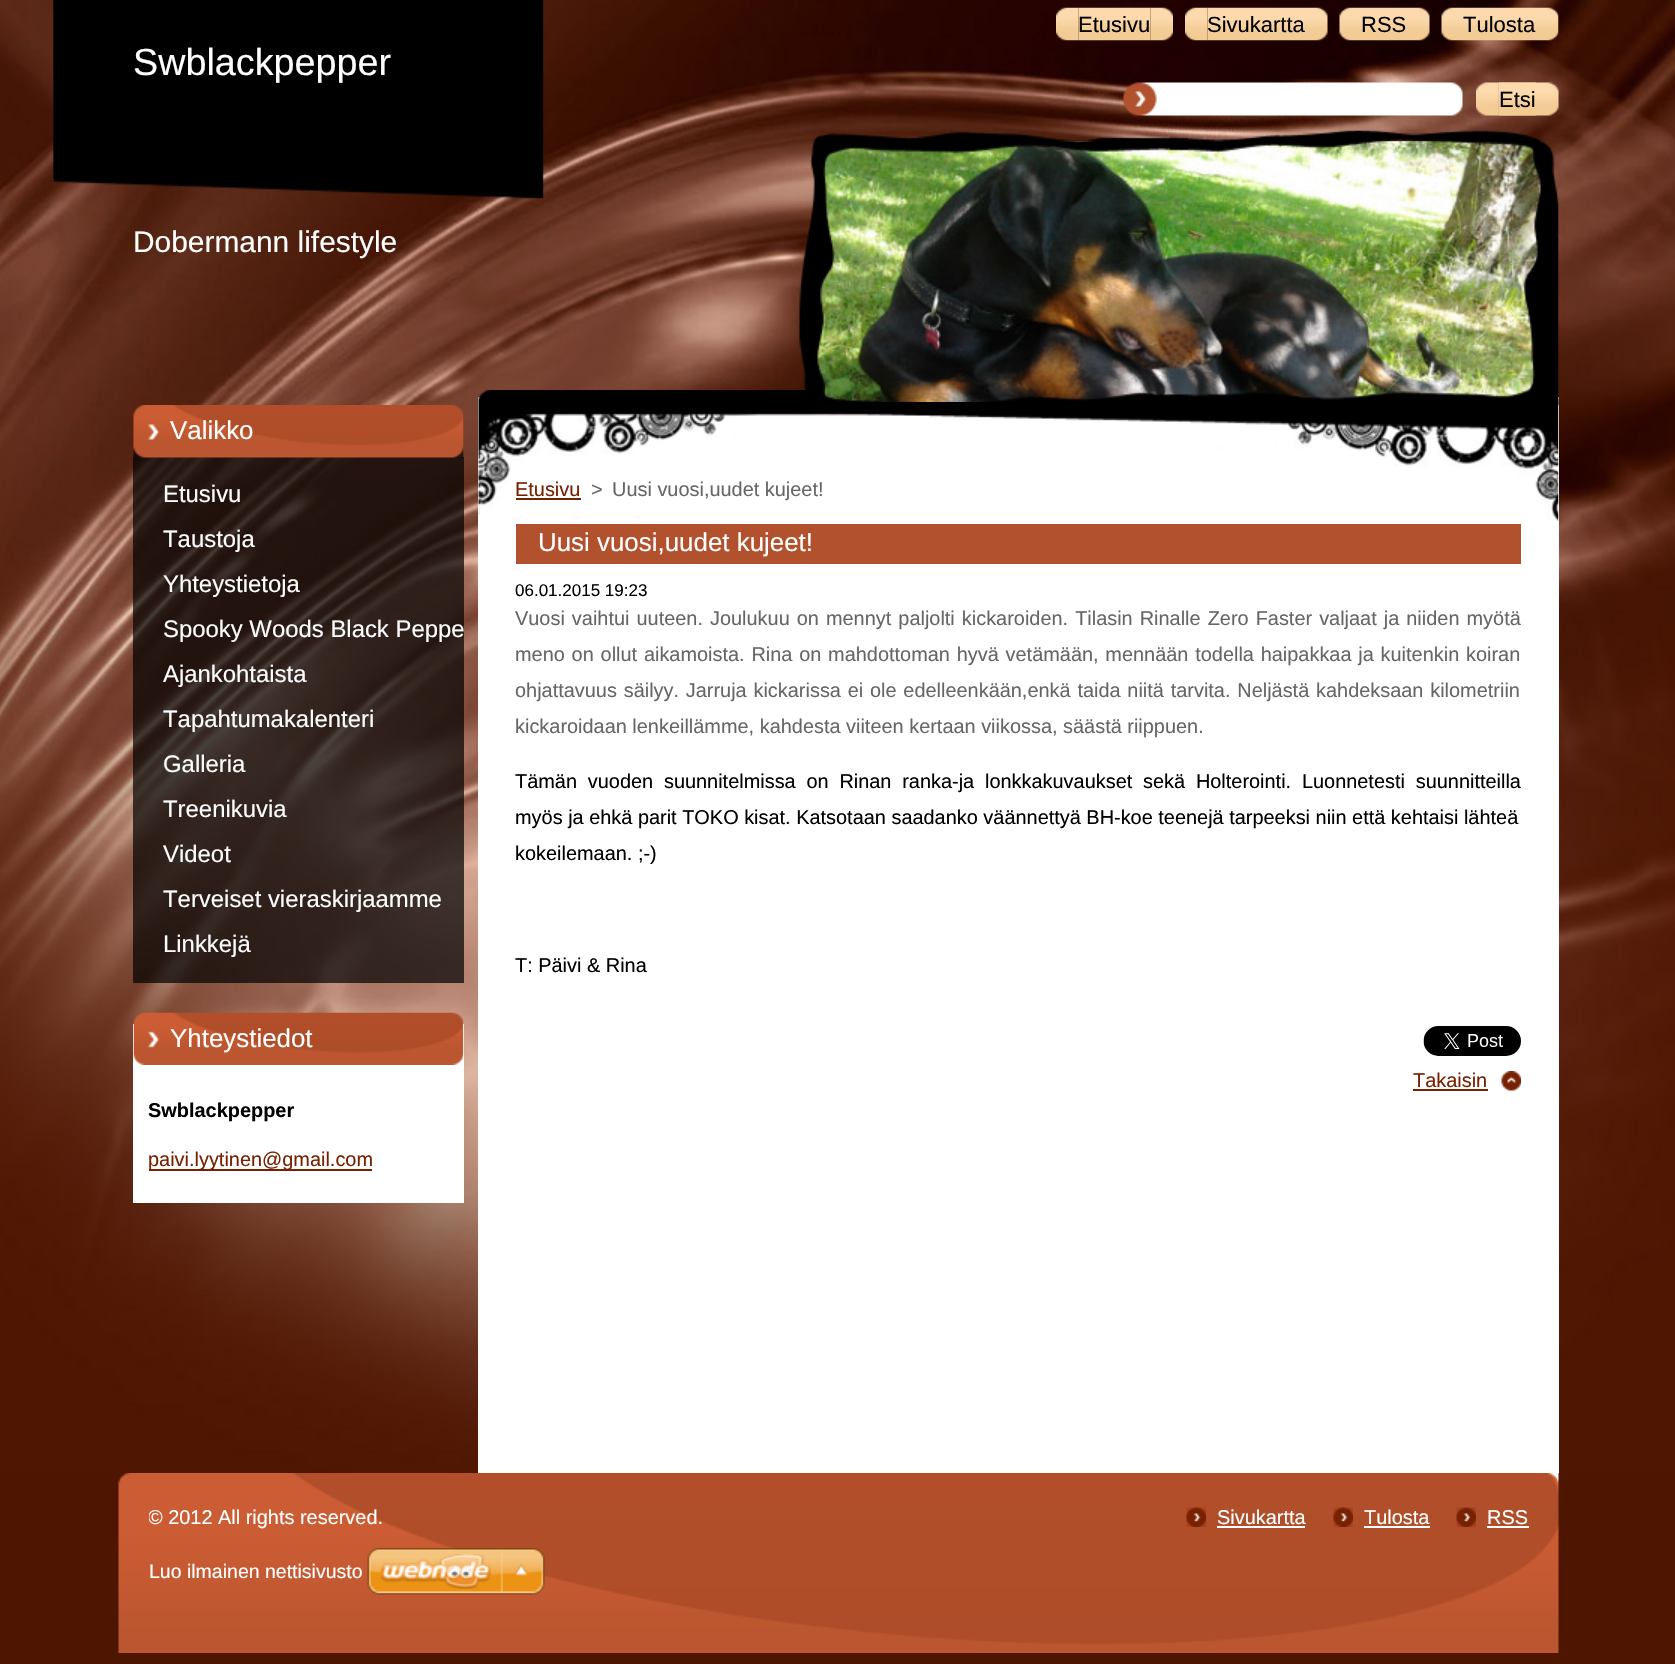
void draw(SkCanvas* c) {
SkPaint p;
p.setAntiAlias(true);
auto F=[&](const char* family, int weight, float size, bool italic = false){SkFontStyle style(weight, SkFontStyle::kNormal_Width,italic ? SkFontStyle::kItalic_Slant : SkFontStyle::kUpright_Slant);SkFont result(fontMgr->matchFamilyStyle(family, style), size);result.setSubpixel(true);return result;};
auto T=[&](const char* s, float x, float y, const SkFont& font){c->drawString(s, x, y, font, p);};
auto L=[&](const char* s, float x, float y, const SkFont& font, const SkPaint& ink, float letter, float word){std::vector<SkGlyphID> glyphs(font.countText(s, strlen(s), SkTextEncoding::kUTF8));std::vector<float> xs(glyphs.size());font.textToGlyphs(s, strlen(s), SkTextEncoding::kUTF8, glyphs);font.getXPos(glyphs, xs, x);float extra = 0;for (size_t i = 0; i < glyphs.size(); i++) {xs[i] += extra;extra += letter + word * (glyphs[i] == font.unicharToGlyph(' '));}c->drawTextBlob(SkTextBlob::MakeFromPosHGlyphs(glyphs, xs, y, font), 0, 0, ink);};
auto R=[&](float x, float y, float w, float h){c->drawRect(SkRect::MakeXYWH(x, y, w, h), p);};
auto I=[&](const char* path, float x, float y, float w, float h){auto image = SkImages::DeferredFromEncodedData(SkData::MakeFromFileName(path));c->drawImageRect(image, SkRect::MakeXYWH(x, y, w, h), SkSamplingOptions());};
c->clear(0xff4e1601);
I("1.png",0,0,1675,1474);
I("2.png",53,0,491,199);
p.setColor(0xffffffff);
R(478,397,1081,1076);
I("3.png",1056,7,23,34);
I("4.png",1078,7,73,34);
auto f1 = F("Liberation Sans",400,22);
p.setColor(0xff000000);
T("Etusivu",1078,32,f1);
I("5.png",1150,7,23,34);
I("6.png",1185,7,23,34);
I("7.png",1207,7,98,34);
T("Sivukartta",1207,32,f1);
I("8.png",1305,7,23,34);
I("9.png",1339,7,23,34);
I("10.png",1362,7,45,34);
T("RSS",1361,32,f1);
I("11.png",1407,7,23,34);
I("12.png",1441,7,23,34);
I("13.png",1464,7,72,34);
T("Tulosta",1463,32,f1);
I("14.png",1536,7,23,34);
auto f2 = F("Liberation Sans",400,37.75);
p.setColor(0xffffffff);
T("Swblackpepper",133,75,f2);
I("15.png",1123,82,340,34);
I("16.png",1476,82,23,34);
I("17.png",1498,82,38,34);
I("18.png",1498,82,38,34);
p.setColor(0xff000000);
T("Etsi",1499,107,f1);
I("19.png",1536,82,23,34);
I("20.png",478,390,1081,15);
auto f3 = F("Liberation Sans",400,29.9);
p.setColor(0xffffffff);
T("Dobermann lifestyle",133,252,f3);
I("22.png",814,141,728,261);
I("21.png",798,130,761,275);
p.setColor(0xb3000000);
R(133,457,331,526);
I("23.png",133,405,331,53);
auto f4 = F("Liberation Sans",400,25.9);
p.setColor(0xffffffff);
T("Valikko",170,439,f4);
auto f5 = F("Liberation Sans",400,23.9);
T("Etusivu",163,502,f5);
T("Taustoja",163,547,f5);
T("Yhteystietoja",163,592,f5);
T("Spooky Woods Black Peppe",163,637,f5);
T("Ajankohtaista",163,682,f5);
T("Tapahtumakalenteri",163,727,f5);
T("Galleria",163,772,f5);
T("Treenikuvia",163,817,f5);
T("Videot",163,862,f5);
T("Terveiset vieraskirjaamme",163,907,f5);
T("Linkkejä",163,952,f5);
R(133,1024,331,179);
I("24.png",133,1012,331,53);
T("Yhteystiedot",170,1047,f4);
auto f6 = F("Liberation Sans",700,19.92);
p.setColor(0xff000000);
T("Swblackpepper",148,1117,f6);
p.setColor(0xff772101);
R(149,1169,223,2);
auto f7 = F("Liberation Sans",400,19.92);
T("paivi.lyytinen@gmail.com",148,1166,f7);
I("25.png",478,405,1081,116);
T("Etusivu",515,496,f7);
R(516,498,65,2);
p.setColor(0xff666666);
T(">",591,496,f7);
T("Uusi vuosi,uudet kujeet!",612,496,f7);
p.setColor(0xffb2512d);
R(516,524,1005,40);
p.setColor(0xffffffff);
T("Uusi vuosi,uudet kujeet!",538,551,f4);
auto f8 = F("Liberation Sans",400,17);
p.setColor(0xff000000);
T("06.01.2015 19:23",515,596,f8);
p.setColor(0xff666666);
L("Vuosi vaihtui uuteen. Joulukuu on mennyt paljolti kickaroiden. Tilasin Rinalle Zero Faster valjaat ja niiden myötä",515,625,f7,p,0,1.5);
L("meno on ollut aikamoista. Rina on mahdottoman hyvä vetämään, mennään todella haipakkaa ja kuitenkin koiran",515,661,f7,p,0,1.25);
L("ohjattavuus säilyy. Jarruja kickarissa ei ole edelleenkään,enkä taida niitä tarvita. Neljästä kahdeksaan kilometriin",515,697,f7,p,0,1.25);
T("kickaroidaan lenkeillämme, kahdesta viiteen kertaan viikossa, säästä riippuen.",515,733,f7);
p.setColor(0xff000000);
L("Tämän vuoden suunnitelmissa on Rinan ranka-ja lonkkakuvaukset sekä Holterointi. Luonnetesti suunnitteilla",515,788,f7,p,0,5.25);
T("myös ja ehkä parit TOKO kisat. Katsotaan saadanko väännettyä BH-koe teenejä tarpeeksi niin että kehtaisi lähteä",515,824,f7);
T("kokeilemaan. ;-)",515,860,f7);
T("T: Päivi & Rina",515,972,f7);
I("26.png",1423,1026,98,30);
I("27.png",1501,1071,20,20);
p.setColor(0xff772101);
T("Takaisin",1413,1087,f7);
R(1413,1089,75,2);
I("28.png",118,1473,1441,180);
c->save();
c->clipRect(SkRect::MakeXYWH(149,1503,870,30));
p.setColor(0xffffffff);
T("© 2012 All rights reserved.",148,1524,f7);
c->restore();
I("29.png",1186,1507,20,20);
T("Sivukartta",1217,1524,f7);
R(1217,1526,88,2);
I("29.png",1333,1507,20,20);
T("Tulosta",1364,1524,f7);
R(1364,1526,66,2);
I("29.png",1456,1507,20,20);
T("RSS",1487,1524,f7);
R(1487,1526,42,2);
auto f9 = F("Liberation Sans",400,19.5);
T("Luo ilmainen nettisivusto",149,1578,f9);
I("30.png",367,1548,178,47);
}
